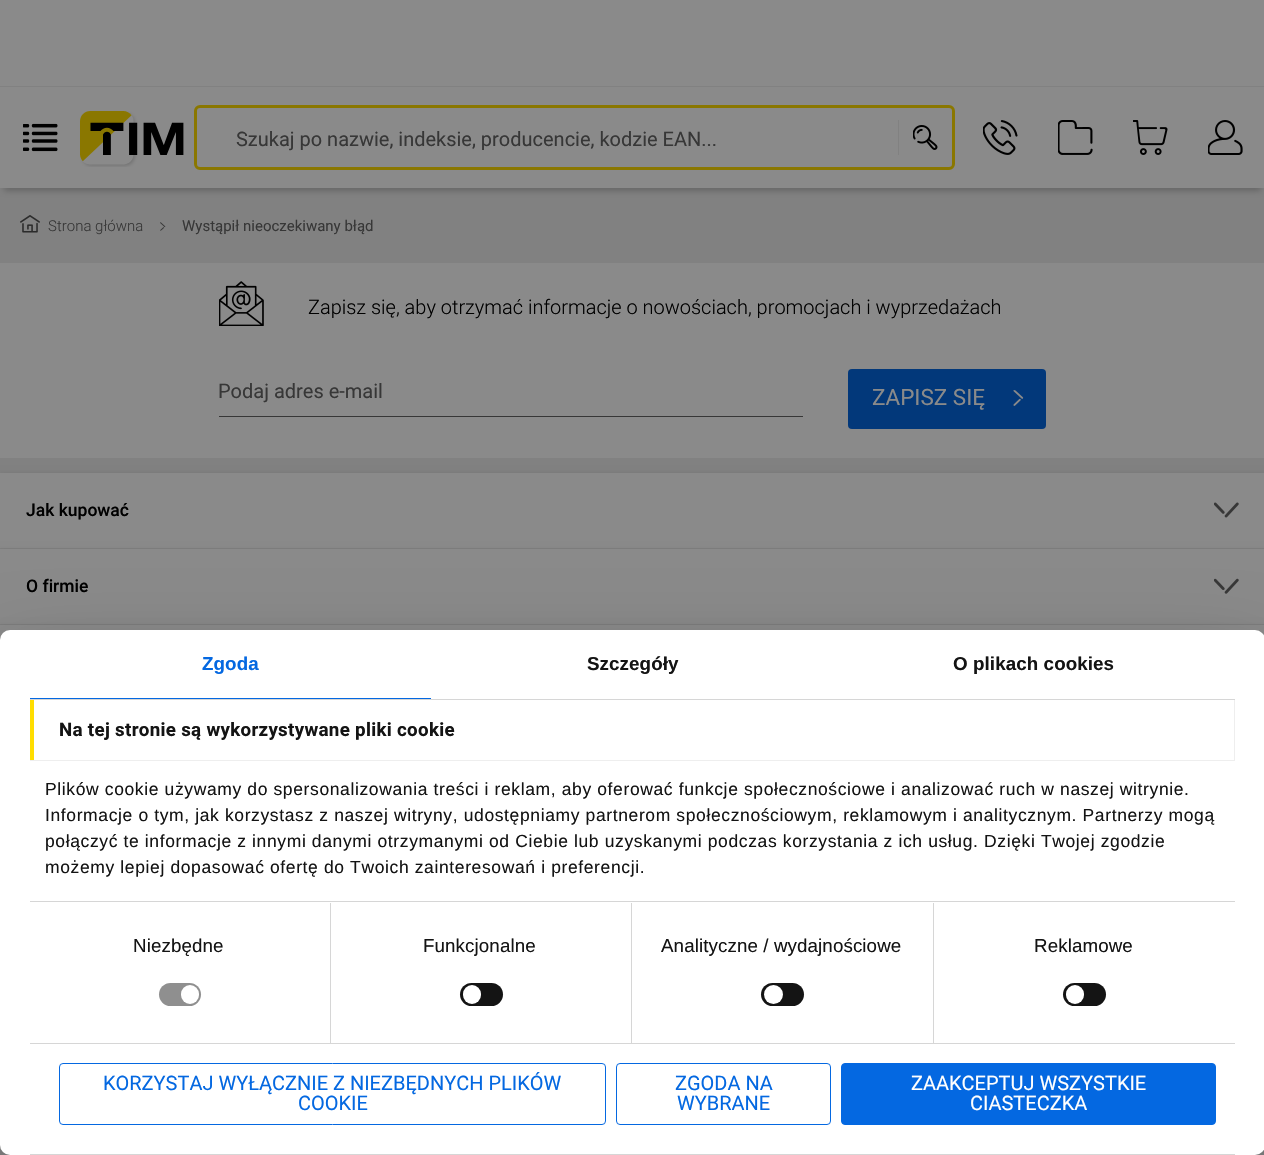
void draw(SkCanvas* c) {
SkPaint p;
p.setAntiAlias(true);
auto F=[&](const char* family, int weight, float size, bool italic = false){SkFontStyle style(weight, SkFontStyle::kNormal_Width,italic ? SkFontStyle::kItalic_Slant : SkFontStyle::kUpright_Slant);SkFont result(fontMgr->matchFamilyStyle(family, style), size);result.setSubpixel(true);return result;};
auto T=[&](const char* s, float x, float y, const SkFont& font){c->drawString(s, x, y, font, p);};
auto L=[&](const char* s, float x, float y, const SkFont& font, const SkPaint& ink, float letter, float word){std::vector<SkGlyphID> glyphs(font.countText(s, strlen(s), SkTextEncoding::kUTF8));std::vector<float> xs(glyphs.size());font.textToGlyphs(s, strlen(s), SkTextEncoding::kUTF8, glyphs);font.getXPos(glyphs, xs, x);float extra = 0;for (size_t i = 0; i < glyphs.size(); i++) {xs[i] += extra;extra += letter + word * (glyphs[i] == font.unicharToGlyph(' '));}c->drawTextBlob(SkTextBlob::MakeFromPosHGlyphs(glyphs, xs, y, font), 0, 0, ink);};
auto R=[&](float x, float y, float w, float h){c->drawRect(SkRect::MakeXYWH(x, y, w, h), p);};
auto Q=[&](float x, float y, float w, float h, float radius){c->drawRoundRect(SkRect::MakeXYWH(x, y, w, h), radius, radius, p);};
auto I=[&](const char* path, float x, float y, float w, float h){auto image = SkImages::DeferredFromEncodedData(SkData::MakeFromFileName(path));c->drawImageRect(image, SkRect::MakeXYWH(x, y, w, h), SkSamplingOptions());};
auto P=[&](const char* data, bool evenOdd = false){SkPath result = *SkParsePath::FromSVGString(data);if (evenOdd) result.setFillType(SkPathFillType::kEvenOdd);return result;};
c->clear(0xff818181);
p.setColor(0xff8a8a8a);
R(0,0,1264,188);
p.setColor(0xff818181);
R(0,86,1264,1);
I("1.png",23,123,35,29);
I("2.png",80,111,104,56);
p.setStroke(true);
p.setStrokeWidth(3);
p.setColor(0xff8a7700);
c->drawRoundRect(SkRect::MakeXYWH(195.5,106.5,758,62),4.5,4.5,p);
auto f1 = F("Roboto",400,20);
p.setStroke(false);
p.setColor(0xff373737);
T("Szukaj po nazwie, indeksie, producencie, kodzie EAN...",236,146,f1);
p.setColor(0xff818181);
R(898,120,1,35);
I("3.png",913,125,25,25);
I("4.png",983,120,35,35);
I("5.png",1058,120,35,35);
I("6.png",1133,120,35,35);
I("7.png",1208,120,35,35);
c->save();
c->clipPath(P("M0 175h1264v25h-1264zm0 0h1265v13h-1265z",true),true);
p.setColor(0x4d000000);
p.setMaskFilter(SkMaskFilter::MakeBlur(kNormal_SkBlurStyle, 3));
c->drawRect(SkRect::MakeXYWH(4,185,1257,5),p);
p.setMaskFilter(nullptr);
c->restore();
I("8.png",20,215,20,18);
auto f2 = F("Roboto",300,15);
p.setColor(0xff373737);
T("Strona główna",48,231,f2);
I("9.png",160,222,6,9);
auto f3 = F("Roboto",400,15);
T("Wystąpił nieoczekiwany błąd",182,231,f3);
p.setColor(0xff8a8a8a);
R(0,263,1264,195);
I("10.png",219,281,45,45);
auto f4 = F("Roboto",300,20);
p.setColor(0xff000000);
T("Zapisz się, aby otrzymać informacje o nowościach, promocjach i wyprzedażach",308,314,f4);
p.setColor(0xff373737);
T("Podaj adres e-mail",218,398,f1);
R(219,416,584,1);
p.setColor(0xff02387a);
Q(848,369,198,60,4);
auto f5 = F("Roboto",400,22.5);
p.setColor(0xff8a8a8a);
T("ZAPISZ SIĘ",872,405,f5);
I("11.png",1013,390,11,16);
p.setColor(0x1a000000);
p.setMaskFilter(SkMaskFilter::MakeBlur(kNormal_SkBlurStyle, 3));
c->drawRect(SkRect::MakeXYWH(-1,474,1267,79),p);
p.setMaskFilter(nullptr);
p.setColor(0xff8a8a8a);
R(0,473,1264,75);
p.setColor(0xff818181);
R(0,548,1264,1);
auto f6 = F("Roboto",500,17.5);
p.setColor(0xff000000);
T("Jak kupować",26,516,f6);
I("12.png",1214,502,25,16);
p.setColor(0x1a000000);
p.setMaskFilter(SkMaskFilter::MakeBlur(kNormal_SkBlurStyle, 3));
c->drawRect(SkRect::MakeXYWH(-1,550,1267,79),p);
p.setMaskFilter(nullptr);
p.setColor(0xff8a8a8a);
R(0,549,1264,75);
p.setColor(0xff818181);
R(0,624,1264,1);
p.setColor(0xff000000);
T("O firmie",26,592,f6);
I("13.png",1214,578,25,16);
p.setColor(0x1a000000);
p.setMaskFilter(SkMaskFilter::MakeBlur(kNormal_SkBlurStyle, 3));
c->drawRect(SkRect::MakeXYWH(-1,626,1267,79),p);
p.setMaskFilter(nullptr);
p.setColor(0xff8a8a8a);
R(0,625,1264,15);
R(0,1145,1264,10);
p.setColor(0x4d000000);
p.setMaskFilter(SkMaskFilter::MakeBlur(kNormal_SkBlurStyle, 42.5));
c->drawRoundRect(SkRect::MakeXYWH(0,670,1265,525),10,10,p);
p.setMaskFilter(nullptr);
p.setColor(0xffffffff);
Q(0,630,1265,525,10);
p.setColor(0xffd6d6d6);
R(30,699,1205,1);
p.setColor(0xff0468e1);
R(30,698,401,1);
auto f7 = F("Liberation Sans",700,18.75);
L("Zgoda",202,670,f7,p,.1,0);
p.setColor(0xff141414);
L("Szczegóły",587,670,f7,p,.1,0);
L("O plikach cookies",953,670,f7,p,.1,0);
p.setColor(0xffd6d6d6);
R(30,901,1205,1);
p.setColor(0xffeeeeee);
R(1234,700,1,61);
R(30,760,1205,1);
p.setColor(0xffffdd00);
R(30,700,4,60);
auto f8 = F("Roboto",700,18.75);
p.setColor(0xff141414);
L("Na tej stronie są wykorzystywane pliki cookie",59,736,f8,p,.3,0);
auto f9 = F("Liberation Sans",400,17.5);
L("Plików cookie używamy do spersonalizowania treści i reklam, aby oferować funkcje społecznościowe i analizować ruch w naszej witrynie.",45,795,f9,p,.62,0);
L("Informacje o tym, jak korzystasz z naszej witryny, udostępniamy partnerom społecznościowym, reklamowym i analitycznym. Partnerzy mogą",45,821,f9,p,.62,0);
L("połączyć te informacje z innymi danymi otrzymanymi od Ciebie lub uzyskanymi podczas korzystania z ich usług. Dzięki Twojej zgodzie",45,847,f9,p,.62,0);
L("możemy lepiej dopasować ofertę do Twoich zainteresowań i preferencji.",45,873,f9,p,.62,0);
p.setColor(0xffd6d6d6);
R(30,1043,1205,1);
R(330,903,1,140);
auto f10 = F("Liberation Sans",400,18.75);
p.setColor(0xff141414);
L("Niezbędne",133,952,f10,p,.1,0);
p.setColor(0xff8f8f8f);
Q(159,983,42,23,11.5);
p.setColor(0xffffffff);
Q(181,985,18,19,9);
p.setColor(0xffd6d6d6);
R(631,903,1,140);
p.setColor(0xff141414);
L("Funkcjonalne",423,952,f10,p,.1,0);
Q(460,983,43,23,11.5);
p.setColor(0xffffffff);
Q(463,985,18,19,9);
p.setColor(0xffd6d6d6);
R(933,903,1,140);
p.setColor(0xff141414);
L("Analityczne / wydajnościowe",661,952,f10,p,.1,0);
Q(761,983,43,23,11.5);
p.setColor(0xffffffff);
c->drawCircle(773.5,994.5,9.5,p);
p.setColor(0xff141414);
L("Reklamowe",1034,952,f10,p,.1,0);
Q(1063,983,43,23,11.5);
p.setColor(0xffffffff);
Q(1066,985,18,19,9);
p.setColor(0xffd6d6d6);
R(30,1154,1205,1);
p.setStroke(true);
p.setStrokeWidth(1);
p.setColor(0xff0468e1);
c->drawRoundRect(SkRect::MakeXYWH(59.5,1063.5,546,61),3.5,3.5,p);
p.setStroke(false);
T("KORZYSTAJ WYŁĄCZNIE Z NIEZBĘDNYCH PLIKÓW",103,1090,f1);
T("COOKIE",298,1110,f1);
p.setStroke(true);
c->drawRoundRect(SkRect::MakeXYWH(616.5,1063.5,214,61),3.5,3.5,p);
p.setStroke(false);
T("ZGODA NA",675,1090,f1);
T("WYBRANE",677,1110,f1);
c->drawRoundRect(SkRect::MakeXYWH(841.5,1063.5,374,61),3.5,3.5,p);
p.setStroke(true);
c->drawRoundRect(SkRect::MakeXYWH(841.5,1063.5,374,61),3.5,3.5,p);
p.setStroke(false);
p.setColor(0xffffffff);
T("ZAAKCEPTUJ WSZYSTKIE",911,1090,f1);
T("CIASTECZKA",970,1110,f1);
}
